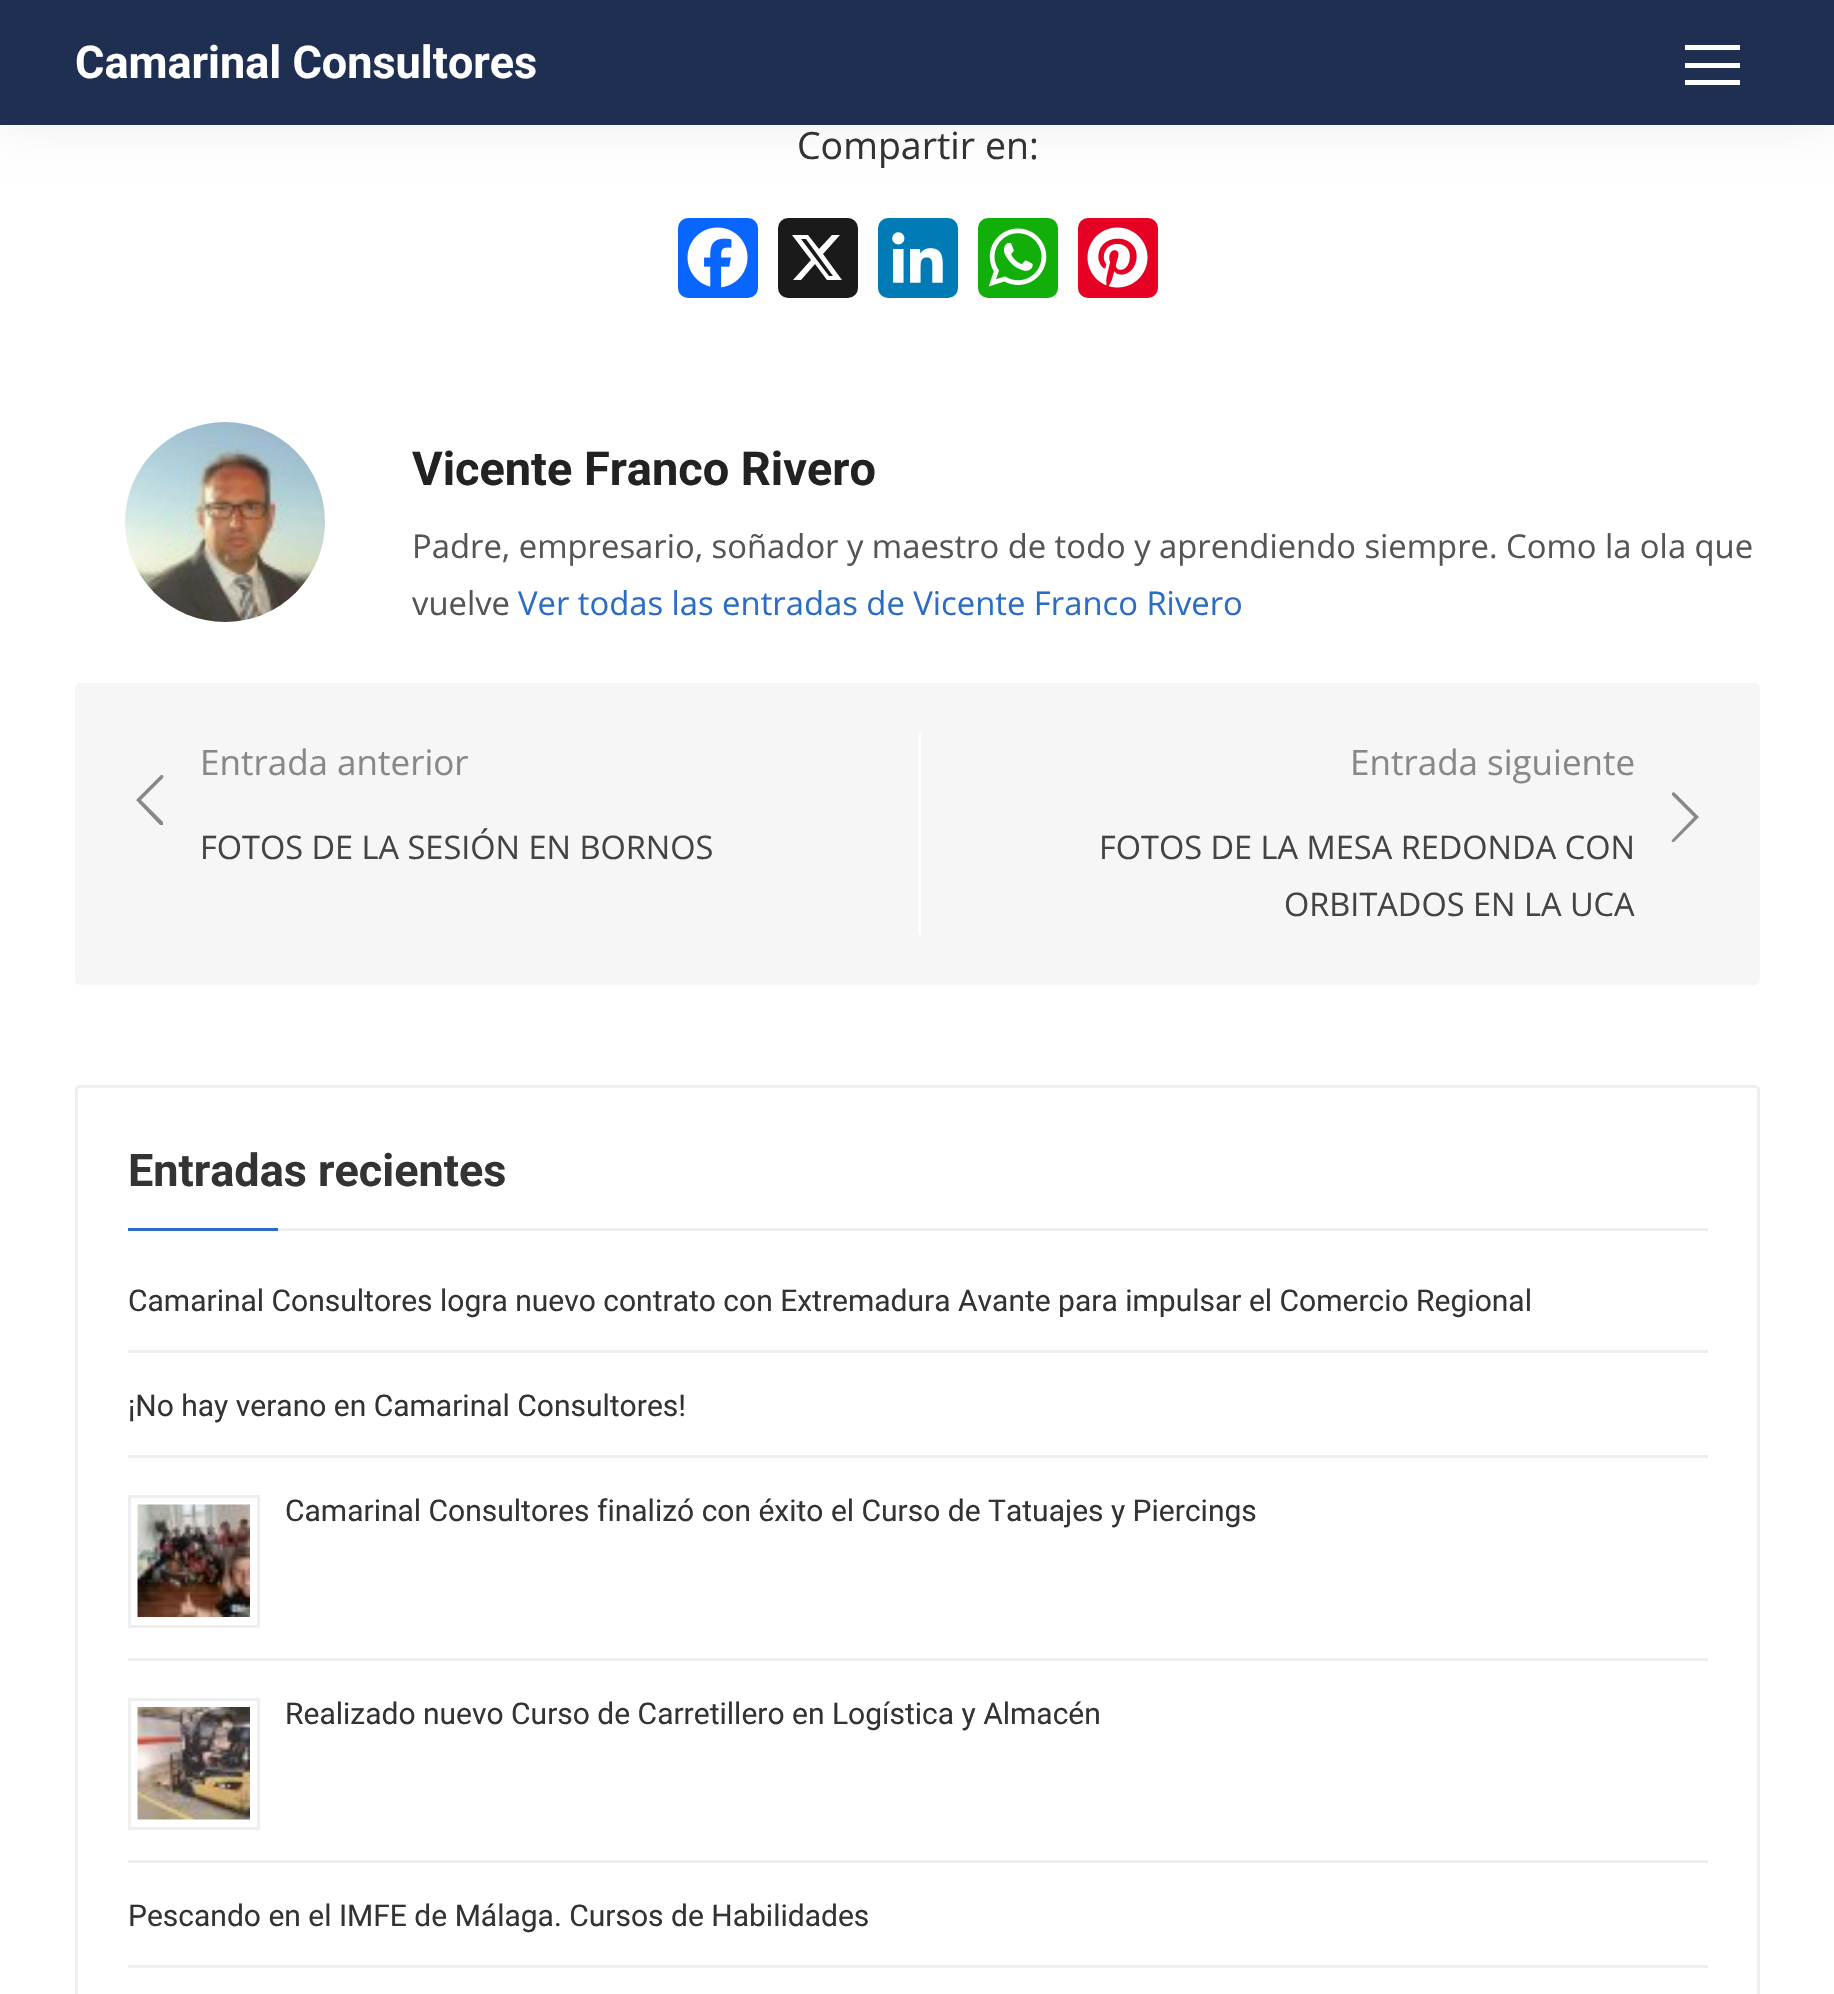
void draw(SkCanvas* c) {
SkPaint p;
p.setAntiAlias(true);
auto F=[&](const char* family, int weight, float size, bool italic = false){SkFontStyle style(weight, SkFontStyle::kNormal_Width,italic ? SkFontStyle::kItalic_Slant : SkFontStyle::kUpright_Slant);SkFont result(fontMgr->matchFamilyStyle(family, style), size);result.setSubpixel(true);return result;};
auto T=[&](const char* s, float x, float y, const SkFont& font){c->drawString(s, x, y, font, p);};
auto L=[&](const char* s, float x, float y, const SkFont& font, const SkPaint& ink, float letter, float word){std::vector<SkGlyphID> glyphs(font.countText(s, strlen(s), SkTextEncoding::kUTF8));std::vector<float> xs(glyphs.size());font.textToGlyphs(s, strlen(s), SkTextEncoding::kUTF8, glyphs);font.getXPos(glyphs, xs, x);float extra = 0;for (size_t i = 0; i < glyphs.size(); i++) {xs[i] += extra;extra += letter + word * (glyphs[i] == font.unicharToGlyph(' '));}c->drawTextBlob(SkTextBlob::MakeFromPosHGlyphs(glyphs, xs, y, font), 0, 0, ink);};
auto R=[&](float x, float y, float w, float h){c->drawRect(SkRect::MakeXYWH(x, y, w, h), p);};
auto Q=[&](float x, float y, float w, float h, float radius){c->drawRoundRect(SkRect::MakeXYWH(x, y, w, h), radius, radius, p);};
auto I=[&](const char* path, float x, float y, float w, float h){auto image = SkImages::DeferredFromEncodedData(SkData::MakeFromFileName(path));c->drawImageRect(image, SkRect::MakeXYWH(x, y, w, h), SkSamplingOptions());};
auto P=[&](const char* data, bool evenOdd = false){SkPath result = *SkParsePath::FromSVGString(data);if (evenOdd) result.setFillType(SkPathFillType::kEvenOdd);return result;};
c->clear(0xffffffff);
p.setColor(0x12000000);
p.setMaskFilter(SkMaskFilter::MakeBlur(kNormal_SkBlurStyle, 25));
c->drawRect(SkRect::MakeXYWH(0,0,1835,125),p);
p.setMaskFilter(nullptr);
p.setColor(0xff1e2f51);
R(0,0,1834,125);
auto f1 = F("Roboto",700,45);
p.setColor(0xffffffff);
T("Camarinal Consultores",75,78,f1);
R(1685,63,55,5);
R(1685,45,55,5);
R(1685,80,55,5);
auto f2 = F("Open Sans",400,37.5);
p.setColor(0xff333333);
T("Compartir en:",797,159,f2);
p.setColor(0xff0866ff);
Q(678,218,80,80,10);
I("1.png",687,227,61,61);
p.setColor(0xff1a1a1a);
Q(778,218,80,80,10);
p.setColor(0xffffffff);
c->drawPath(P("M832 235h8l-17 19l19 26h-15l-12-16l-14 16h-8l18-20l-19-25h16l11 14zm-3 41h4l-27-37h-5z"),p);
p.setColor(0xff007bb5);
Q(878,218,80,80,10);
I("2.png",892,232,51,51);
p.setColor(0xff12af0a);
Q(978,218,80,80,10);
I("3.png",988,228,59,59);
p.setColor(0xffe60023);
Q(1078,218,80,80,10);
I("4.png",1087,227,61,61);
I("5.png",125,422,200,200);
auto f3 = F("Roboto",700,46.9);
p.setColor(0xff222222);
T("Vicente Franco Rivero",412,485,f3);
auto f4 = F("Open Sans",400,32.8);
p.setColor(0xff555555);
L("Padre, empresario, soñador y maestro de todo y aprendiendo siempre. Como la ola que",412,558,f4,p,0,-.1);
T("vuelve",412,615,f4);
p.setColor(0xff2b6dc4);
L("Ver todas las entradas de Vicente Franco Rivero",518,615,f4,p,0,-.1);
p.setColor(0xfff6f6f6);
Q(75,683,1685,302,5);
auto f5 = F("Open Sans",400,35);
p.setColor(0xff888888);
T("Entrada anterior",200,775,f5);
c->drawPath(P("M162 775h-1l-24 24c-1 1-1 2 0 2l23 24c1 0 2 0 3 0c0-1 0-2 0-3l-22-22l22-22c1-1 0-3-1-3z"),p);
auto f6 = F("Open Sans",400,32.5);
p.setColor(0xff444444);
T("FOTOS DE LA SESIÓN EN BORNOS",200,859,f6);
p.setColor(0xffffffff);
R(918,733,3,202);
p.setColor(0xff888888);
T("Entrada siguiente",1350,775,f5);
c->drawPath(P("M1673 842h1l24-24c1 0 1-1 0-2l-23-23c-1-1-2-1-3 0c0 1 0 2 0 2l22 22l-22 23c-1 1 0 2 1 2z"),p);
p.setColor(0xff444444);
T("FOTOS DE LA MESA REDONDA CON",1099,859,f6);
T("ORBITADOS EN LA UCA",1284,916,f6);
p.setStroke(true);
p.setStrokeWidth(3);
p.setColor(0xffeeeeee);
c->drawRoundRect(SkRect::MakeXYWH(76.5,1086.5,1682,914),3.5,3.5,p);
p.setStroke(false);
R(278,1228,1430,3);
p.setColor(0xff333333);
T("Entradas recientes",128,1186,f1);
p.setColor(0xff2b6dc4);
R(128,1228,150,3);
p.setColor(0xffeeeeee);
R(128,1350,1580,3);
auto f7 = F("Roboto",400,30);
p.setColor(0xff333333);
T("Camarinal Consultores logra nuevo contrato con Extremadura Avante para impulsar el Comercio Regional",128,1311,f7);
p.setColor(0xffeeeeee);
R(128,1455,1580,3);
p.setColor(0xff333333);
T("¡No hay verano en Camarinal Consultores!",128,1416,f7);
p.setColor(0xffeeeeee);
R(128,1658,1580,3);
p.setStroke(true);
c->drawRect(SkRect::MakeXYWH(129.5,1496.5,129,130),p);
I("6.png",137,1504,113,113);
p.setStroke(false);
p.setColor(0xff333333);
T("Camarinal Consultores finalizó con éxito el Curso de Tatuajes y Piercings",285,1521,f7);
p.setColor(0xffeeeeee);
R(128,1860,1580,3);
p.setStroke(true);
c->drawRect(SkRect::MakeXYWH(129.5,1699.5,129,129),p);
I("7.png",137,1707,113,113);
p.setStroke(false);
p.setColor(0xff333333);
T("Realizado nuevo Curso de Carretillero en Logística y Almacén",285,1724,f7);
p.setColor(0xffeeeeee);
R(128,1965,1580,3);
p.setColor(0xff333333);
T("Pescando en el IMFE de Málaga. Cursos de Habilidades",128,1926,f7);
}
